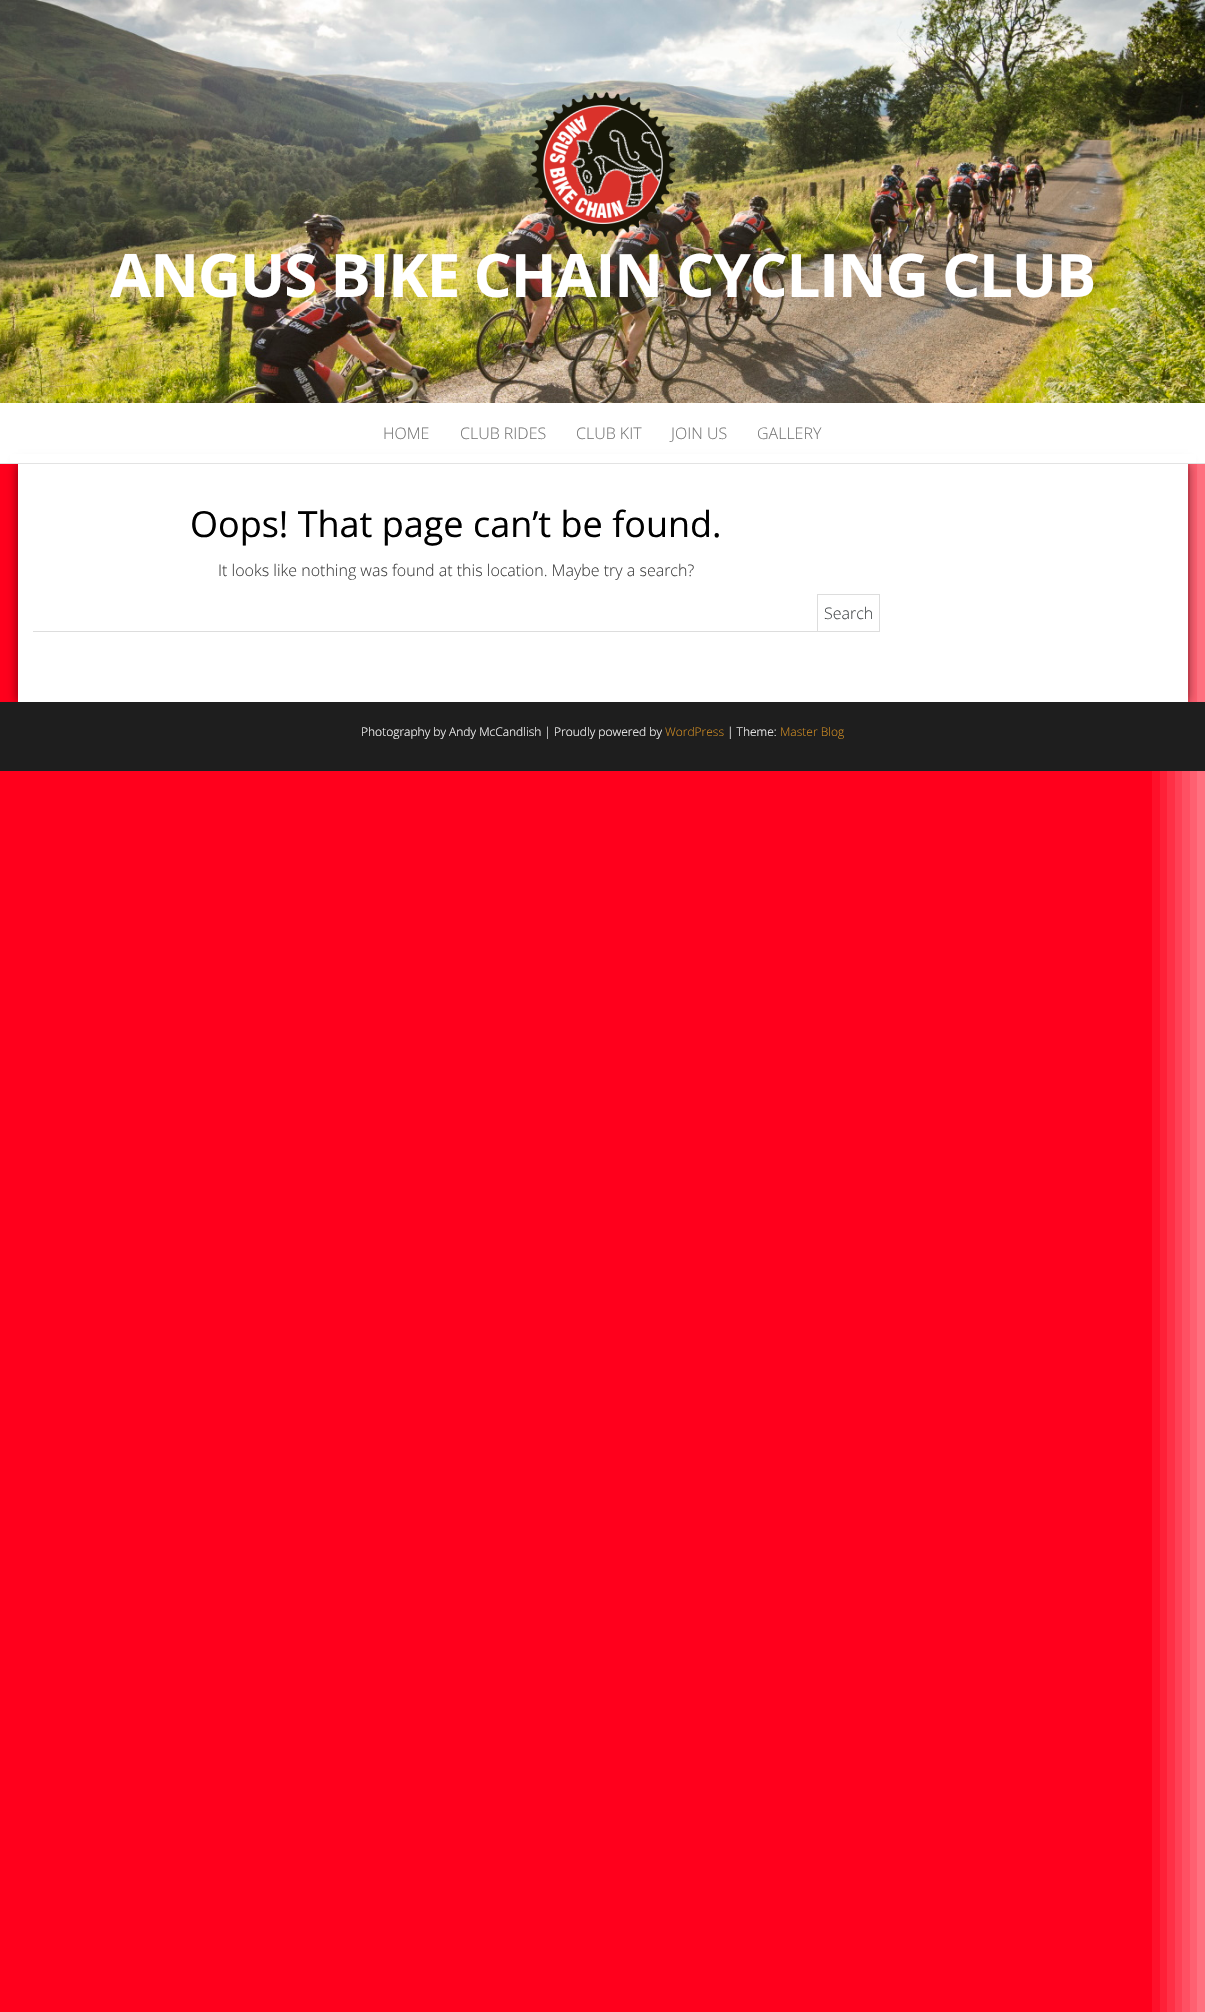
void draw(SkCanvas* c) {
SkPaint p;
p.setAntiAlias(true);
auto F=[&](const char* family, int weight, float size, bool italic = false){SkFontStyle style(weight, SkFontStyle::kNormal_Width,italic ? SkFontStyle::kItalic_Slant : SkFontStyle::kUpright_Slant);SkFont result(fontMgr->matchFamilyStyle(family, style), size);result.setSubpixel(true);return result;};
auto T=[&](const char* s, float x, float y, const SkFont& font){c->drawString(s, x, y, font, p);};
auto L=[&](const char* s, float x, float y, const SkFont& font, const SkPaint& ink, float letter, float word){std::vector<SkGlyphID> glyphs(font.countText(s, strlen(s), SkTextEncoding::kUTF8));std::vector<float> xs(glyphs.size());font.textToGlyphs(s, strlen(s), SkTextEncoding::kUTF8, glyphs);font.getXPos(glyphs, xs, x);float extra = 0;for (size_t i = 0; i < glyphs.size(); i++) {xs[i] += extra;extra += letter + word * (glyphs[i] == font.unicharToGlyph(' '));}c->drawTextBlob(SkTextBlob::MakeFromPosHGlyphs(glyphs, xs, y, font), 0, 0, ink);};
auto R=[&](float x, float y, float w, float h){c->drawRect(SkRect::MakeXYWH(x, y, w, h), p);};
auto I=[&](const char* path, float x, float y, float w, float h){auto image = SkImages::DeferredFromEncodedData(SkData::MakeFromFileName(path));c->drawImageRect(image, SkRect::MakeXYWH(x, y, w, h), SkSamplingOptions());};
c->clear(0xffffffff);
I("1.png",0,0,1205,403);
I("2.png",531,92,145,146);
auto f1 = F("Open Sans",700,60);
p.setColor(0xffffffff);
L("ANGUS BIKE CHAIN CYCLING CLUB",110,297,f1,p,-1.2,0);
I("3.png",0,464,1205,1548);
p.setColor(0x8c000000);
p.setMaskFilter(SkMaskFilter::MakeBlur(kNormal_SkBlurStyle, 5));
c->drawRect(SkRect::MakeXYWH(18,464,1170,238),p);
p.setMaskFilter(nullptr);
p.setColor(0xffffffff);
R(10,454,1186,9);
p.setColor(0xffe3e3e3);
R(0,463,1205,1);
auto f2 = F("Open Sans",300,16);
p.setColor(0xff777777);
T("HOME",383,439,f2);
T("CLUB RIDES",460,439,f2);
T("CLUB KIT",576,439,f2);
T("JOIN US",671,439,f2);
T("GALLERY",757,439,f2);
p.setColor(0xffffffff);
R(18,464,1170,238);
auto f3 = F("Open Sans",400,36);
p.setColor(0xff000000);
T("Oops! That page can’t be found.",190,537,f3);
p.setColor(0xff404040);
T("It looks like nothing was found at this location. Maybe try a search?",218,576,f2);
p.setStroke(true);
p.setStrokeWidth(1);
p.setColor(0xffdddddd);
c->drawRect(SkRect::MakeXYWH(817.5,594.5,62,37),p);
p.setStroke(false);
p.setColor(0xff464a4c);
T("Search",824,619,f2);
p.setColor(0xffdddddd);
R(33,631,784,1);
p.setColor(0xff1e1e1e);
R(0,702,1205,69);
auto f4 = F("Open Sans",300,12);
p.setColor(0xffffffff);
T("Photography by Andy McCandlish | Proudly powered by",361,736,f4);
p.setColor(0xffd08c22);
T("WordPress",665,736,f4);
p.setColor(0xffffffff);
T("| Theme:",727,736,f4);
p.setColor(0xffd08c22);
T("Master Blog",780,736,f4);
}
